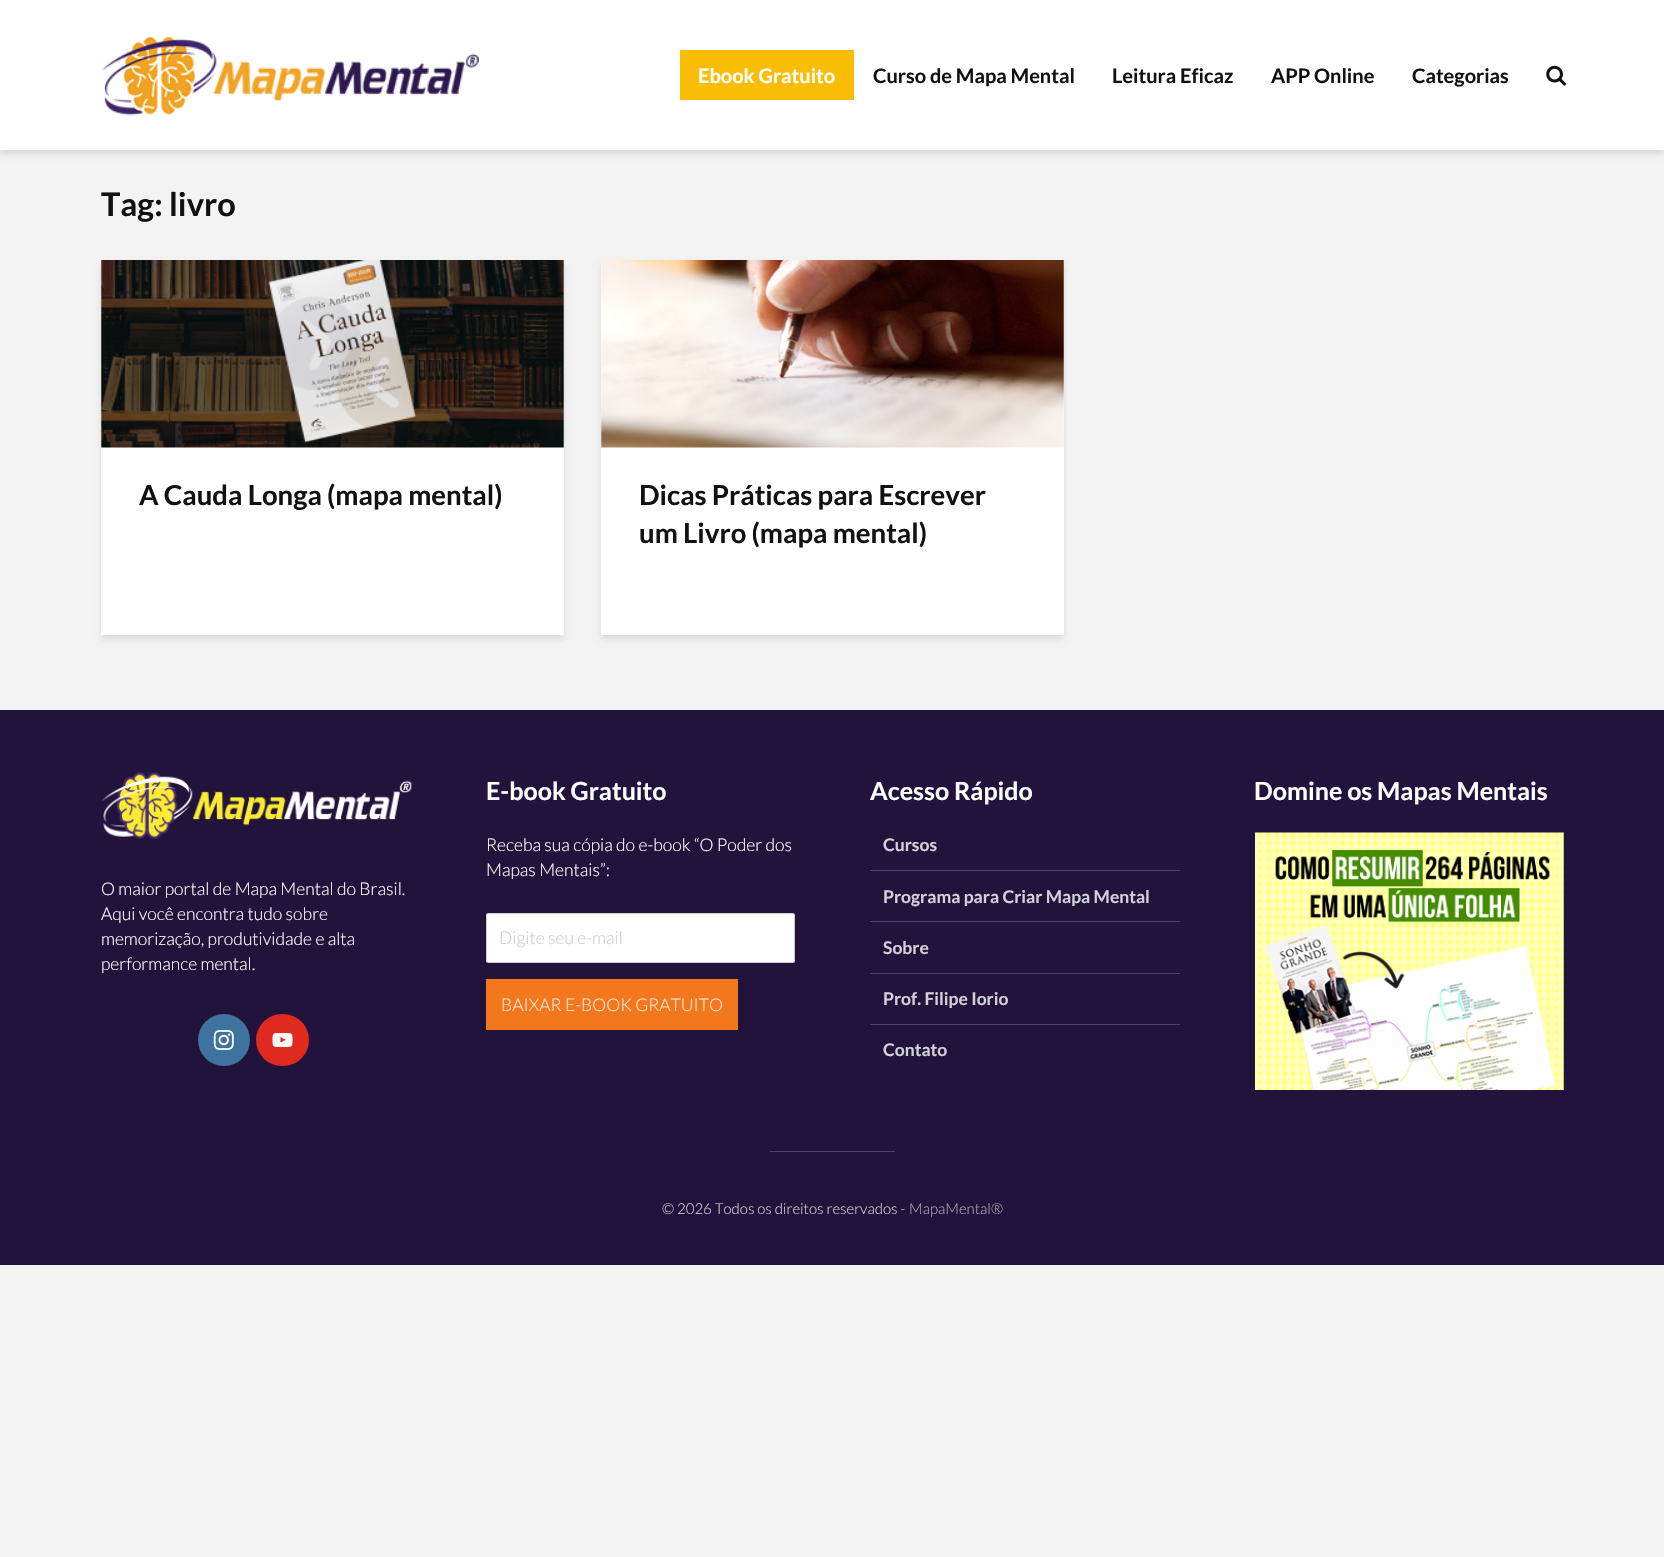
void draw(SkCanvas* c) {
SkPaint p;
p.setAntiAlias(true);
auto F=[&](const char* family, int weight, float size, bool italic = false){SkFontStyle style(weight, SkFontStyle::kNormal_Width,italic ? SkFontStyle::kItalic_Slant : SkFontStyle::kUpright_Slant);SkFont result(fontMgr->matchFamilyStyle(family, style), size);result.setSubpixel(true);return result;};
auto T=[&](const char* s, float x, float y, const SkFont& font){c->drawString(s, x, y, font, p);};
auto R=[&](float x, float y, float w, float h){c->drawRect(SkRect::MakeXYWH(x, y, w, h), p);};
auto Q=[&](float x, float y, float w, float h, float radius){c->drawRoundRect(SkRect::MakeXYWH(x, y, w, h), radius, radius, p);};
auto I=[&](const char* path, float x, float y, float w, float h){auto image = SkImages::DeferredFromEncodedData(SkData::MakeFromFileName(path));c->drawImageRect(image, SkRect::MakeXYWH(x, y, w, h), SkSamplingOptions());};
c->clear(0xfff3f3f3);
p.setColor(0x1a000101);
p.setMaskFilter(SkMaskFilter::MakeBlur(kNormal_SkBlurStyle, 3));
c->drawRect(SkRect::MakeXYWH(0,4,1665,150),p);
p.setMaskFilter(nullptr);
p.setColor(0xffffffff);
R(0,0,1664,150);
I("1.png",101,36,378,80);
p.setColor(0xfffabd05);
R(680,50,174,50);
auto f1 = F("Lato",700,20);
p.setColor(0xffffffff);
T("Ebook Gratuito",698,83,f1);
p.setColor(0xff111111);
T("Curso de Mapa Mental",873,83,f1);
T("Leitura Eficaz",1112,83,f1);
T("APP Online",1271,83,f1);
T("Categorias",1412,83,f1);
I("2.png",1546,65,20,21);
auto f2 = F("Lato",700,32.5);
T("Tag: livro",101,216,f2);
p.setColor(0x1a000101);
p.setMaskFilter(SkMaskFilter::MakeBlur(kNormal_SkBlurStyle, 3));
c->drawRect(SkRect::MakeXYWH(101,264,463,375),p);
p.setMaskFilter(nullptr);
p.setColor(0xffffffff);
R(101,260,463,375);
I("3.png",101,260,463,188);
auto f3 = F("Lato",700,27.5);
p.setColor(0xff111111);
T("A Cauda Longa (mapa mental)",139,505,f3);
p.setColor(0x1a000101);
p.setMaskFilter(SkMaskFilter::MakeBlur(kNormal_SkBlurStyle, 3));
c->drawRect(SkRect::MakeXYWH(601,264,463,375),p);
p.setMaskFilter(nullptr);
p.setColor(0xffffffff);
R(601,260,463,375);
I("4.png",601,260,463,188);
p.setColor(0xff111111);
T("Dicas Práticas para Escrever",639,505,f3);
T("um Livro (mapa mental)",639,543,f3);
p.setColor(0xff22133c);
R(0,710,1664,555);
auto f4 = F("Lato",700,25);
p.setColor(0xffffffff);
T("E-book Gratuito",486,800,f4);
auto f5 = F("Lato",300,17.5);
T("Receba sua cópia do e-book “O Poder dos",486,851,f5);
T("Mapas Mentais”:",486,876,f5);
Q(486,913,309,50,2.5);
p.setStroke(true);
p.setStrokeWidth(1);
p.setColor(0x330a0a0a);
c->drawRoundRect(SkRect::MakeXYWH(486.5,913.5,308,49),2,2,p);
p.setStroke(false);
p.setColor(0xffcccccc);
T("Digite seu e-mail",499,944,f5);
p.setColor(0xfff3771c);
R(486,979,252,51);
p.setColor(0xfffde4d2);
T("BAIXAR E-BOOK GRATUITO",501,1011,f5);
p.setColor(0xffffffff);
T("Acesso Rápido",870,800,f4);
p.setColor(0xff4e4263);
R(870,870,310,1);
auto f6 = F("Lato",700,17.5);
p.setColor(0xffd3d0d8);
T("Cursos",883,851,f6);
p.setColor(0xff4e4263);
R(870,921,310,1);
p.setColor(0xffd3d0d8);
T("Programa para Criar Mapa Mental",883,903,f6);
p.setColor(0xff4e4263);
R(870,973,310,1);
p.setColor(0xffd3d0d8);
T("Sobre",883,954,f6);
p.setColor(0xff4e4263);
R(870,1024,310,1);
p.setColor(0xffd3d0d8);
T("Prof. Filipe Iorio",883,1005,f6);
T("Contato",883,1056,f6);
p.setColor(0xffffffff);
T("Domine os Mapas Mentais",1254,800,f4);
I("5.png",1255,832,309,258);
I("6.png",101,772,311,67);
T("O maior portal de Mapa Mental do Brasil.",101,895,f5);
T("Aqui você encontra tudo sobre",101,920,f5);
T("memorização, produtividade e alta",101,945,f5);
T("performance mental.",101,970,f5);
p.setColor(0xff3f729c);
c->drawCircle(224,1040,26,p);
I("7.png",213,1030,21,20);
p.setColor(0xffe02a20);
Q(256,1014,53,52,26);
I("8.png",272,1033,21,14);
p.setColor(0xff4e4263);
R(770,1151,125,1);
auto f7 = F("Lato",300,15);
p.setColor(0xffd3d0d8);
T("© 2026 Todos os direitos reservados -",662,1214,f7);
p.setColor(0xffb0aab9);
T("MapaMental®",909,1214,f7);
}
